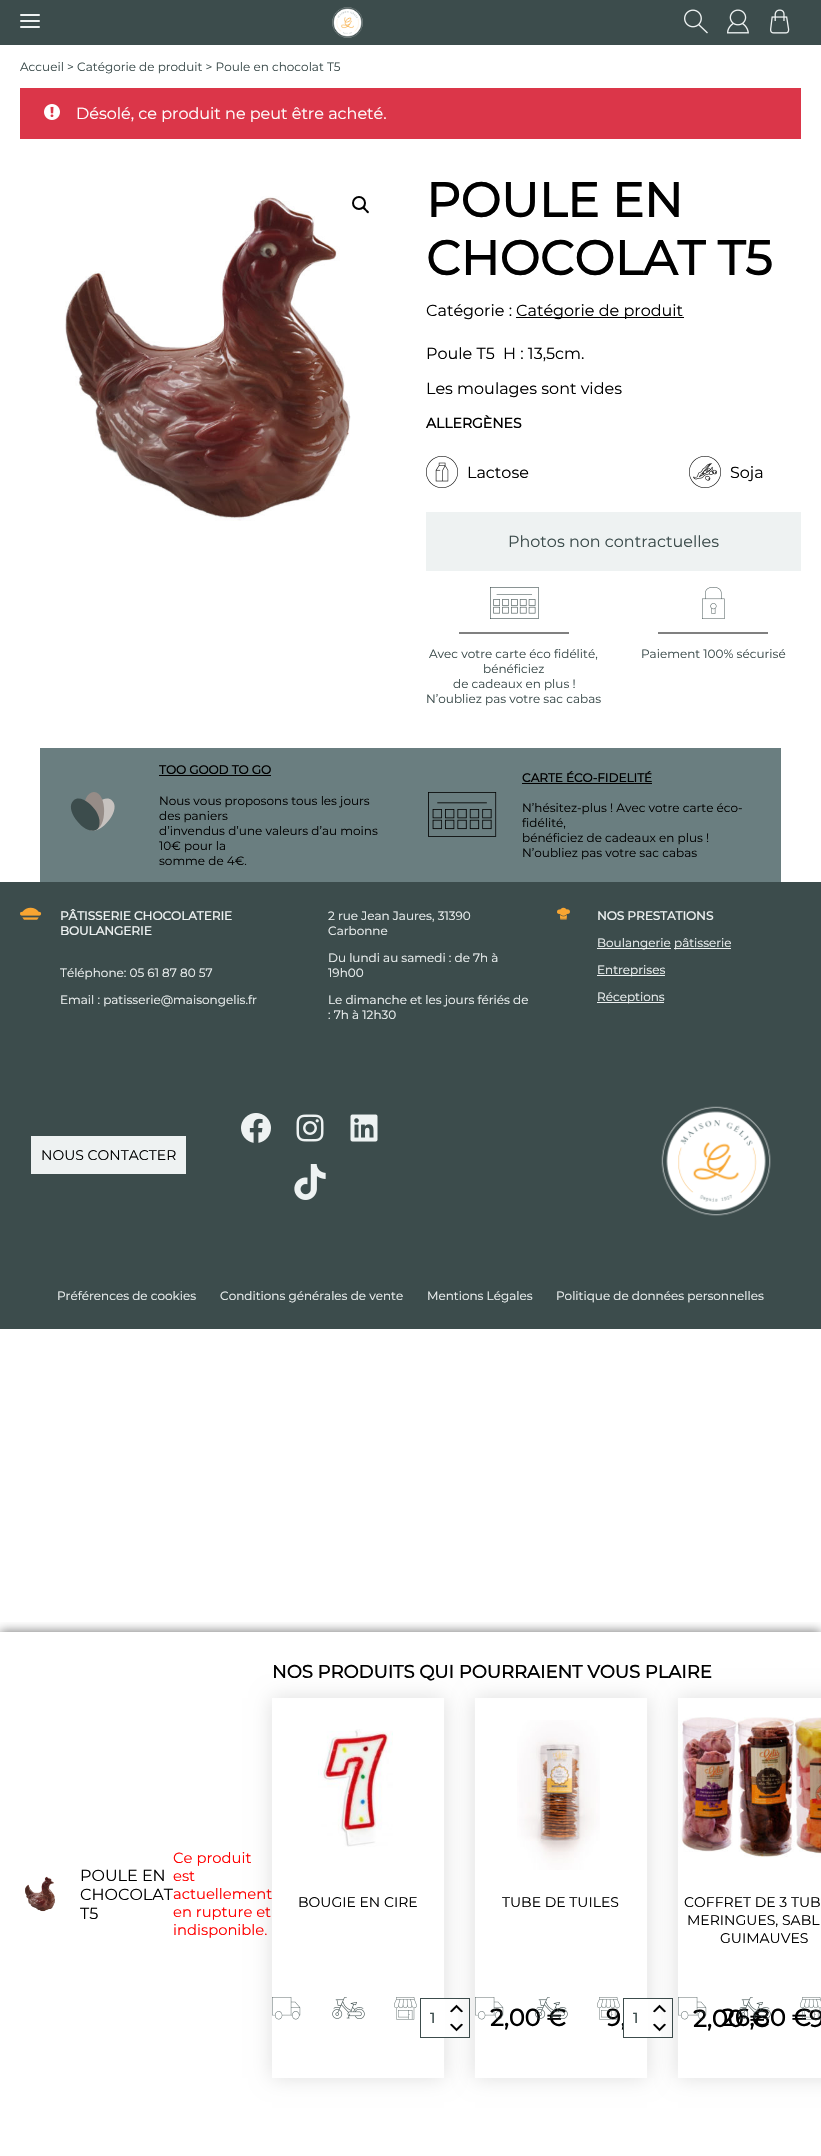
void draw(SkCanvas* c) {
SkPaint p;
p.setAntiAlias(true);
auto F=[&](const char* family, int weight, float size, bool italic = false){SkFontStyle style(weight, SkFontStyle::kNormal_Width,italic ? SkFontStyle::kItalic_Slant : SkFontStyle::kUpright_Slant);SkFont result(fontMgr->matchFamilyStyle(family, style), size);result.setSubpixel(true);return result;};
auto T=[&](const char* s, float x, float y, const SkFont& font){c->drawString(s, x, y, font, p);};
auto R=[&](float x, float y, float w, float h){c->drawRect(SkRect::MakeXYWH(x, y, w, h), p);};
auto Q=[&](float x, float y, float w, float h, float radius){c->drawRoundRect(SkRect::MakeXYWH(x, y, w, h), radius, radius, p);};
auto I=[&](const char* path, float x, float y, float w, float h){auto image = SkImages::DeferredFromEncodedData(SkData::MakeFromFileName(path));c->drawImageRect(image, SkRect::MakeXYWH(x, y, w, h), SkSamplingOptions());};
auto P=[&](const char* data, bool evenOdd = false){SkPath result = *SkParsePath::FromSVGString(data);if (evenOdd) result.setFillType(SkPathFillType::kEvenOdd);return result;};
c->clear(0xffffffff);
p.setColor(0xff3c4c4c);
R(0,0,821,45);
p.setColor(0xffeef2f2);
Q(20,14,20,2,1);
Q(20,20,20,2,1);
Q(20,26,20,2,1);
I("1.png",332,7,31,31);
I("2.png",684,9,24,25);
I("3.png",727,9,22,25);
I("4.png",770,9,20,25);
auto f1 = F("Montserrat",400,12);
p.setColor(0xff3c4c4c);
T("Accueil > Catégorie de produit > Poule en chocolat T5",20,71,f1);
p.setColor(0xffdb3649);
R(20,88,781,51);
I("5.png",44,104,16,16);
auto f2 = F("Montserrat",400,16);
p.setColor(0xffffffff);
T("Désolé, ce produit ne peut être acheté.",76,119,f2);
I("6.png",65,196,286,325);
p.setStroke(true);
p.setStrokeWidth(2);
p.setColor(0xff000000);
c->drawCircle(359,203,6,p);
p.setStroke(false);
c->drawPath(P("M363 207c1-1 3 1.5 3.5 2.5c.5 .5 3.5 2 2 3.5c-1 1-2.5-1.5-3.5-2.5c-.5-.5-3-2-2-3.5z"),p);
auto f3 = F("Montserrat",700,48);
T("POULE EN",426,217,f3);
T("CHOCOLAT T5",426,275,f3);
T("Catégorie :",426,316,f2);
R(516,317,168,1);
T("Catégorie de produit",516,316,f2);
T("Poule T5  H : 13,5cm.",426,359,f2);
T("Les moulages sont vides",426,394,f2);
auto f4 = F("Montserrat",700,14);
T("ALLERGÈNES",426,428,f4);
I("7.png",426,456,32,32);
T("Lactose",467,478,f2);
I("8.png",689,456,32,32);
T("Soja",730,478,f2);
p.setColor(0xffeef2f2);
R(426,512,375,59);
p.setColor(0xff3c4c4c);
T("Photos non contractuelles",508,547,f2);
I("9.png",490,587,49,32);
p.setColor(0xff808080);
R(459,632,110,2);
p.setColor(0xff3c4c4c);
T("Avec votre carte éco fidélité,",429,658,f1);
T("bénéficiez",483,673,f1);
T("de cadeaux en plus !",453,688,f1);
T("N’oubliez pas votre sac cabas",426,703,f1);
I("10.png",702,587,23,32);
p.setColor(0xff808080);
R(658,632,110,2);
p.setColor(0xff3c4c4c);
T("Paiement 100% sécurisé",641,658,f1);
c->save();
c->clipRect(SkRect::MakeXYWH(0,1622,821,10));
p.setColor(0x80000000);
p.setMaskFilter(SkMaskFilter::MakeBlur(kNormal_SkBlurStyle, 5));
c->drawRect(SkRect::MakeXYWH(0,1631,821,524),p);
p.setMaskFilter(nullptr);
c->restore();
I("11.png",25,1876,30,36);
p.setColor(0xff000000);
T("POULE EN",80,1881,f2);
T("CHOCOLAT",80,1900,f2);
T("T5",80,1919,f2);
auto f5 = F("Montserrat",400,14.75);
p.setColor(0xffff0000);
T("Ce produit",173,1863,f5);
T("est",173,1881,f5);
T("actuellement",173,1899,f5);
T("en rupture et",173,1917,f5);
T("indisponible.",173,1935,f5);
auto f6 = F("Montserrat",700,18);
p.setColor(0xff000000);
T("NOS PRODUITS QUI POURRAIENT VOUS PLAIRE",272,1678,f6);
c->save();
c->clipPath(P("M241 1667h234v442h-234zm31 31h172v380h-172z",true),true);
p.setColor(0x21000000);
p.setMaskFilter(SkMaskFilter::MakeBlur(kNormal_SkBlurStyle, 10));
c->drawRect(SkRect::MakeXYWH(272,1698,172,380),p);
p.setMaskFilter(nullptr);
c->restore();
I("12.png",318,1729,75,118);
auto f7 = F("Montserrat",400,14);
p.setColor(0xff000000);
T("BOUGIE EN CIRE",298,1907,f7);
I("13.png",272,1997,29,23);
I("14.png",332,1997,33,22);
I("15.png",394,1997,23,23);
p.setColor(0xffffffff);
R(444,1999,14,38);
p.setStroke(true);
p.setStrokeWidth(1);
p.setColor(0xff3c4c4c);
c->drawRect(SkRect::MakeXYWH(420.5,1998.5,49,39),p);
p.setStroke(false);
T("1",430,2023,f4);
I("16.png",450,2004,13,9);
I("17.png",450,2023,13,9);
auto f8 = F("Montserrat",700,24);
p.setColor(0xff000000);
T("2,00 €",490,2026,f8);
T("9,",606,2026,f8);
T("26,80 €",721,2026,f8);
c->save();
c->clipPath(P("M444 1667h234v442h-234zm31 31h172v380h-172z",true),true);
p.setColor(0x21000000);
p.setMaskFilter(SkMaskFilter::MakeBlur(kNormal_SkBlurStyle, 10));
c->drawRect(SkRect::MakeXYWH(475,1698,172,380),p);
p.setMaskFilter(nullptr);
c->restore();
I("18.png",517,1720,83,150);
p.setColor(0xff000000);
T("TUBE DE TUILES",502,1907,f7);
I("19.png",475,1997,29,23);
I("20.png",535,1997,33,22);
I("21.png",597,1997,23,23);
p.setColor(0xffffffff);
R(624,1999,37,38);
p.setStroke(true);
p.setColor(0xff3c4c4c);
c->drawRect(SkRect::MakeXYWH(623.5,1998.5,49,39),p);
p.setStroke(false);
T("1",633,2023,f4);
I("16.png",653,2004,13,9);
I("17.png",653,2023,13,9);
p.setColor(0xff000000);
T("2,00 €",693,2027,f8);
T("9",809,2027,f8);
c->save();
c->clipPath(P("M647 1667h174v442h-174zm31 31h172v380h-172z",true),true);
p.setColor(0x21000000);
p.setMaskFilter(SkMaskFilter::MakeBlur(kNormal_SkBlurStyle, 10));
c->drawRect(SkRect::MakeXYWH(678,1698,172,380),p);
p.setMaskFilter(nullptr);
c->restore();
I("22.png",678,1717,143,141);
p.setColor(0xff000000);
T("COFFRET DE 3 TUB",684,1907,f7);
T("MERINGUES, SABL",687,1925,f7);
T("GUIMAUVES",720,1943,f7);
I("23.png",678,1997,29,23);
I("24.png",738,1997,33,22);
I("25.png",800,1997,21,23);
p.setColor(0xff6a7e80);
R(40,748,741,134);
p.setColor(0xffc7c2bf);
c->drawPath(P("M88 829c10.5 9 34.5-19 24-28.5c-10-9.5-34.5 19-24 28.5z"),p);
p.setColor(0xff968c87);
c->drawPath(P("M94 830c-14 0-14-38 0-38c13.5 0 13.5 38 0 38z"),p);
p.setColor(0xff3c4c4c);
c->drawPath(P("M97.5 829c-10.5 9-34.5-19-24-28.5c7-6.5 19 5 22.5 10.5c2 3.5 4 8 3.5 12c0 2-.5 4.5-2 6z"),p);
auto f9 = F("Montserrat",700,12);
p.setColor(0xff000000);
T("TOO GOOD TO GO",159,774,f9);
R(159,775,112,1);
T("Nous vous proposons tous les jours",159,805,f1);
T("des paniers",159,820,f1);
T("d’invendus d’une valeurs d’au moins",159,835,f1);
T("10€ pour la",159,850,f1);
T("somme de 4€.",159,865,f1);
I("26.png",428,792,69,45);
T("CARTE ÉCO-FIDELITÉ",522,782,f9);
R(522,783,130,1);
T("N’hésitez-plus ! Avec votre carte éco-",522,812,f1);
T("fidélité,",522,827,f1);
T("bénéficiez de cadeaux en plus !",522,842,f1);
T("N’oubliez pas votre sac cabas",522,857,f1);
p.setColor(0xff3c4c4c);
R(0,882,821,447);
I("27.png",20,907,22,13);
p.setColor(0xffeef2f2);
T("PÂTISSERIE CHOCOLATERIE",60,920,f9);
T("BOULANGERIE",60,935,f9);
T("Téléphone: 05 61 87 80 57",60,977,f1);
T("Email : patisserie@maisongelis.fr",60,1004,f1);
T("2 rue Jean Jaures, 31390",328,920,f1);
T("Carbonne",328,935,f1);
T("Du lundi au samedi : de 7h à",328,962,f1);
T("19h00",328,977,f1);
T("Le dimanche et les jours fériés de",328,1004,f1);
T(": 7h à 12h30",328,1019,f1);
I("28.png",557,907,13,13);
T("NOS PRESTATIONS",597,920,f9);
R(597,948,74,1);
T("Boulangerie",597,947,f1);
R(674,948,57,1);
T("pâtisserie",674,947,f1);
R(597,975,68,1);
T("Entreprises",597,974,f1);
R(597,1002,67,1);
T("Réceptions",597,1001,f1);
R(31,1136,155,38);
p.setColor(0xff000000);
T("NOUS CONTACTER",41,1160,f7);
I("29.png",241,1113,30,30);
I("30.png",296,1114,28,28);
I("31.png",350,1114,28,28);
I("32.png",294,1164,32,36);
I("33.png",661,1106,110,110);
p.setColor(0xffeef2f2);
T("Préférences de cookies",57,1300,f1);
T("Conditions générales de vente",220,1300,f1);
T("Mentions Légales",427,1300,f1);
T("Politique de données personnelles",556,1300,f1);
}
